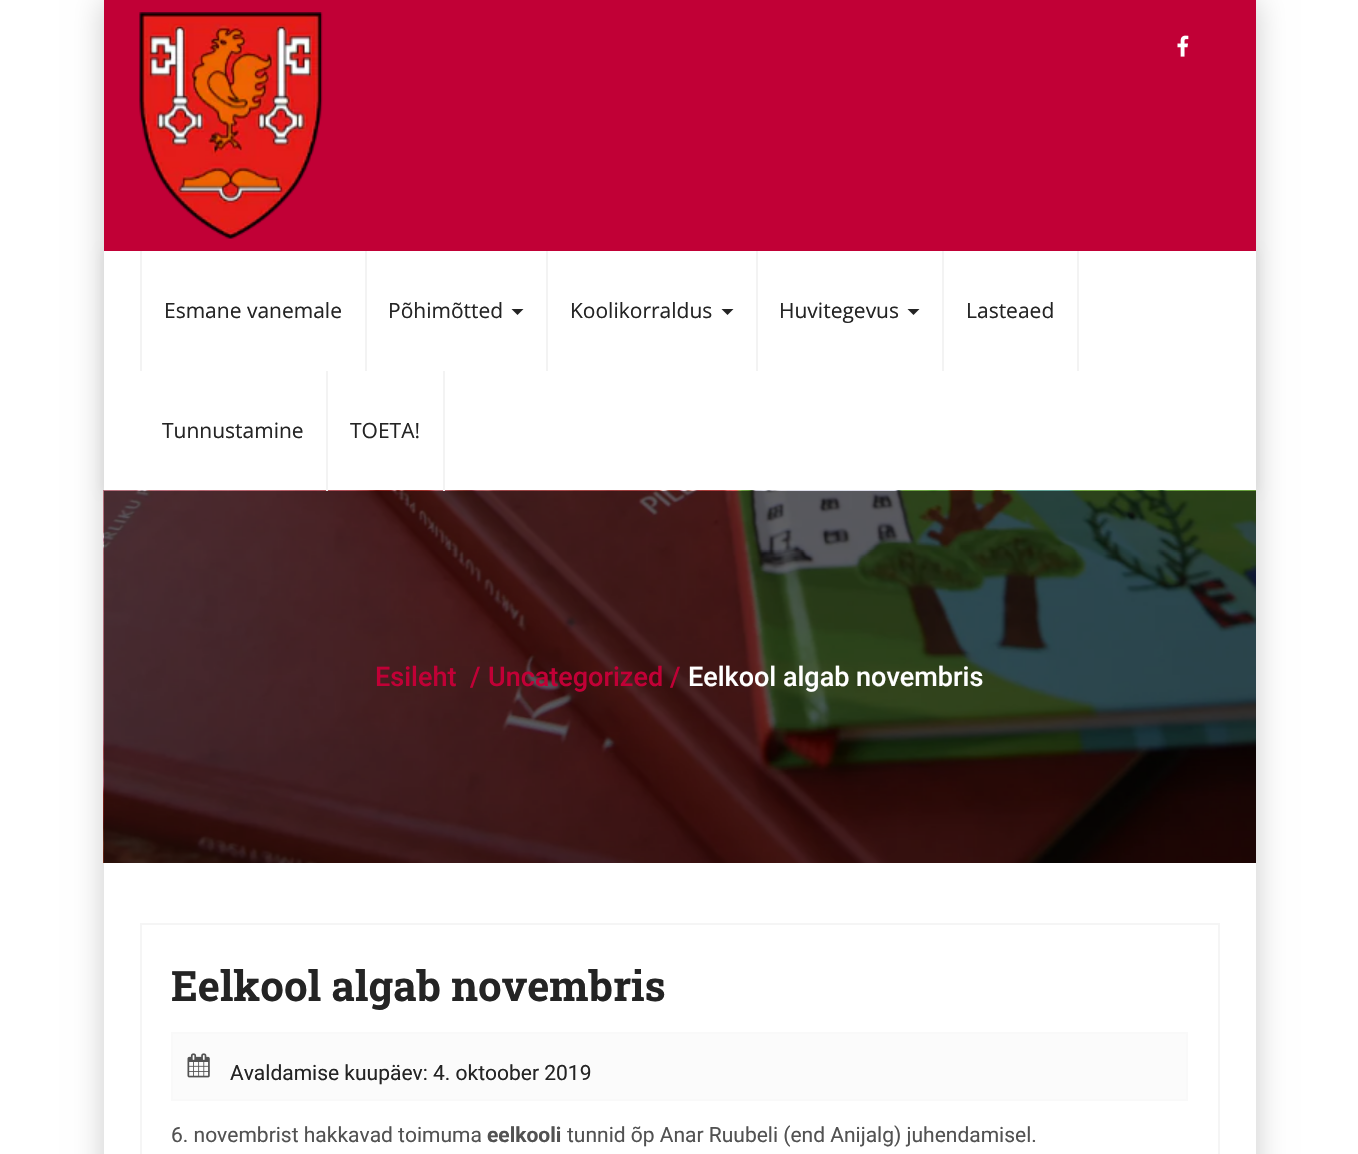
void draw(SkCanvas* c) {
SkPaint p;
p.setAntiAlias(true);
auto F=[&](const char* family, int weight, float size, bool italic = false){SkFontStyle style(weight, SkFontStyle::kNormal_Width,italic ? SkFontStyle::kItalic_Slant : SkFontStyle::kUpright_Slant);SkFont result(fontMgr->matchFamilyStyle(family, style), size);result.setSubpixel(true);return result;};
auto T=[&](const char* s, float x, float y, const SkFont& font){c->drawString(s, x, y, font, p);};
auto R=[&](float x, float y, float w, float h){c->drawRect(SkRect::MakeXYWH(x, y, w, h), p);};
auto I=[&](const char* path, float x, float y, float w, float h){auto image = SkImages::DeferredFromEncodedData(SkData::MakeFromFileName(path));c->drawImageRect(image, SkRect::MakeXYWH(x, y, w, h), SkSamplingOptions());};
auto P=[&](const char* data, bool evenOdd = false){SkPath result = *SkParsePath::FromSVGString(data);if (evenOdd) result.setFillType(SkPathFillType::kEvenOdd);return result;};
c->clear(0xffffffff);
p.setColor(0x33000000);
p.setMaskFilter(SkMaskFilter::MakeBlur(kNormal_SkBlurStyle, 15));
c->drawRect(SkRect::MakeXYWH(104,0,1152,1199),p);
p.setMaskFilter(nullptr);
p.setColor(0xffffffff);
R(104,863,1152,291);
p.setColor(0xffd8d8d8);
p.setMaskFilter(SkMaskFilter::MakeBlur(kNormal_SkBlurStyle, 5));
c->drawRect(SkRect::MakeXYWH(104,251,1152,240),p);
p.setMaskFilter(nullptr);
p.setColor(0xffc10036);
R(104,0,1152,251);
I("1.png",139,12,184,227);
I("2.png",1177,35,12,22);
p.setColor(0xffffffff);
R(104,251,1152,239);
p.setColor(0xfff3f3f3);
R(365,251,2,120);
R(140,251,2,120);
auto f1 = F("Open Sans",400,21);
p.setColor(0xff242424);
T("Esmane vanemale",164,318,f1);
p.setColor(0xfff3f3f3);
R(546,251,2,120);
p.setColor(0xff242424);
T("Põhimõtted",388,318,f1);
c->drawPath(P("M511.5 309h12l-6 6z"),p);
p.setColor(0xfff3f3f3);
R(756,251,2,120);
p.setColor(0xff242424);
T("Koolikorraldus",570,318,f1);
c->drawPath(P("M721.5 309h12l-6 6z"),p);
p.setColor(0xfff3f3f3);
R(942,251,2,120);
p.setColor(0xff242424);
T("Huvitegevus",779,318,f1);
c->drawPath(P("M907.5 309h12l-6 6z"),p);
p.setColor(0xfff3f3f3);
R(1077,251,2,120);
p.setColor(0xff242424);
T("Lasteaed",966,318,f1);
I("3.png",103,490,1153,373);
p.setColor(0xfff3f3f3);
R(326,371,2,120);
p.setColor(0xff242424);
T("Tunnustamine",162,438,f1);
p.setColor(0xfff3f3f3);
R(443,371,2,120);
p.setColor(0xff242424);
T("TOETA!",350,438,f1);
auto f2 = F("Roboto",500,27);
p.setColor(0xffc10036);
T("Esileht",375,686,f2);
T("/",470,686,f2);
T("Uncategorized",488,686,f2);
T("/",670,686,f2);
p.setColor(0xffffffff);
T("Eelkool algab novembris",688,686,f2);
p.setStroke(true);
p.setStrokeWidth(2);
p.setColor(0xfff5f5f5);
c->drawRect(SkRect::MakeXYWH(141,924,1078,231),p);
auto f3 = F("Roboto Slab",700,42);
p.setStroke(false);
p.setColor(0xff242424);
T("Eelkool algab novembris",171,1001,f3);
p.setColor(0xfffbfbfb);
c->drawRect(SkRect::MakeXYWH(172,1033,1015,67),p);
p.setStroke(true);
p.setColor(0xfff9f9f9);
c->drawRect(SkRect::MakeXYWH(172,1033,1015,67),p);
I("4.png",187,1053,23,25);
auto f4 = F("Roboto",400,21);
p.setStroke(false);
p.setColor(0xff242424);
T("Avaldamise kuupäev: 4. oktoober 2019",230,1080,f4);
p.setColor(0xff525252);
T("6. novembrist hakkavad toimuma",171,1142,f4);
auto f5 = F("Roboto",700,21);
T("eelkooli",487,1142,f5);
T("tunnid õp Anar Ruubeli (end Anijalg) juhendamisel.",567,1142,f4);
}
